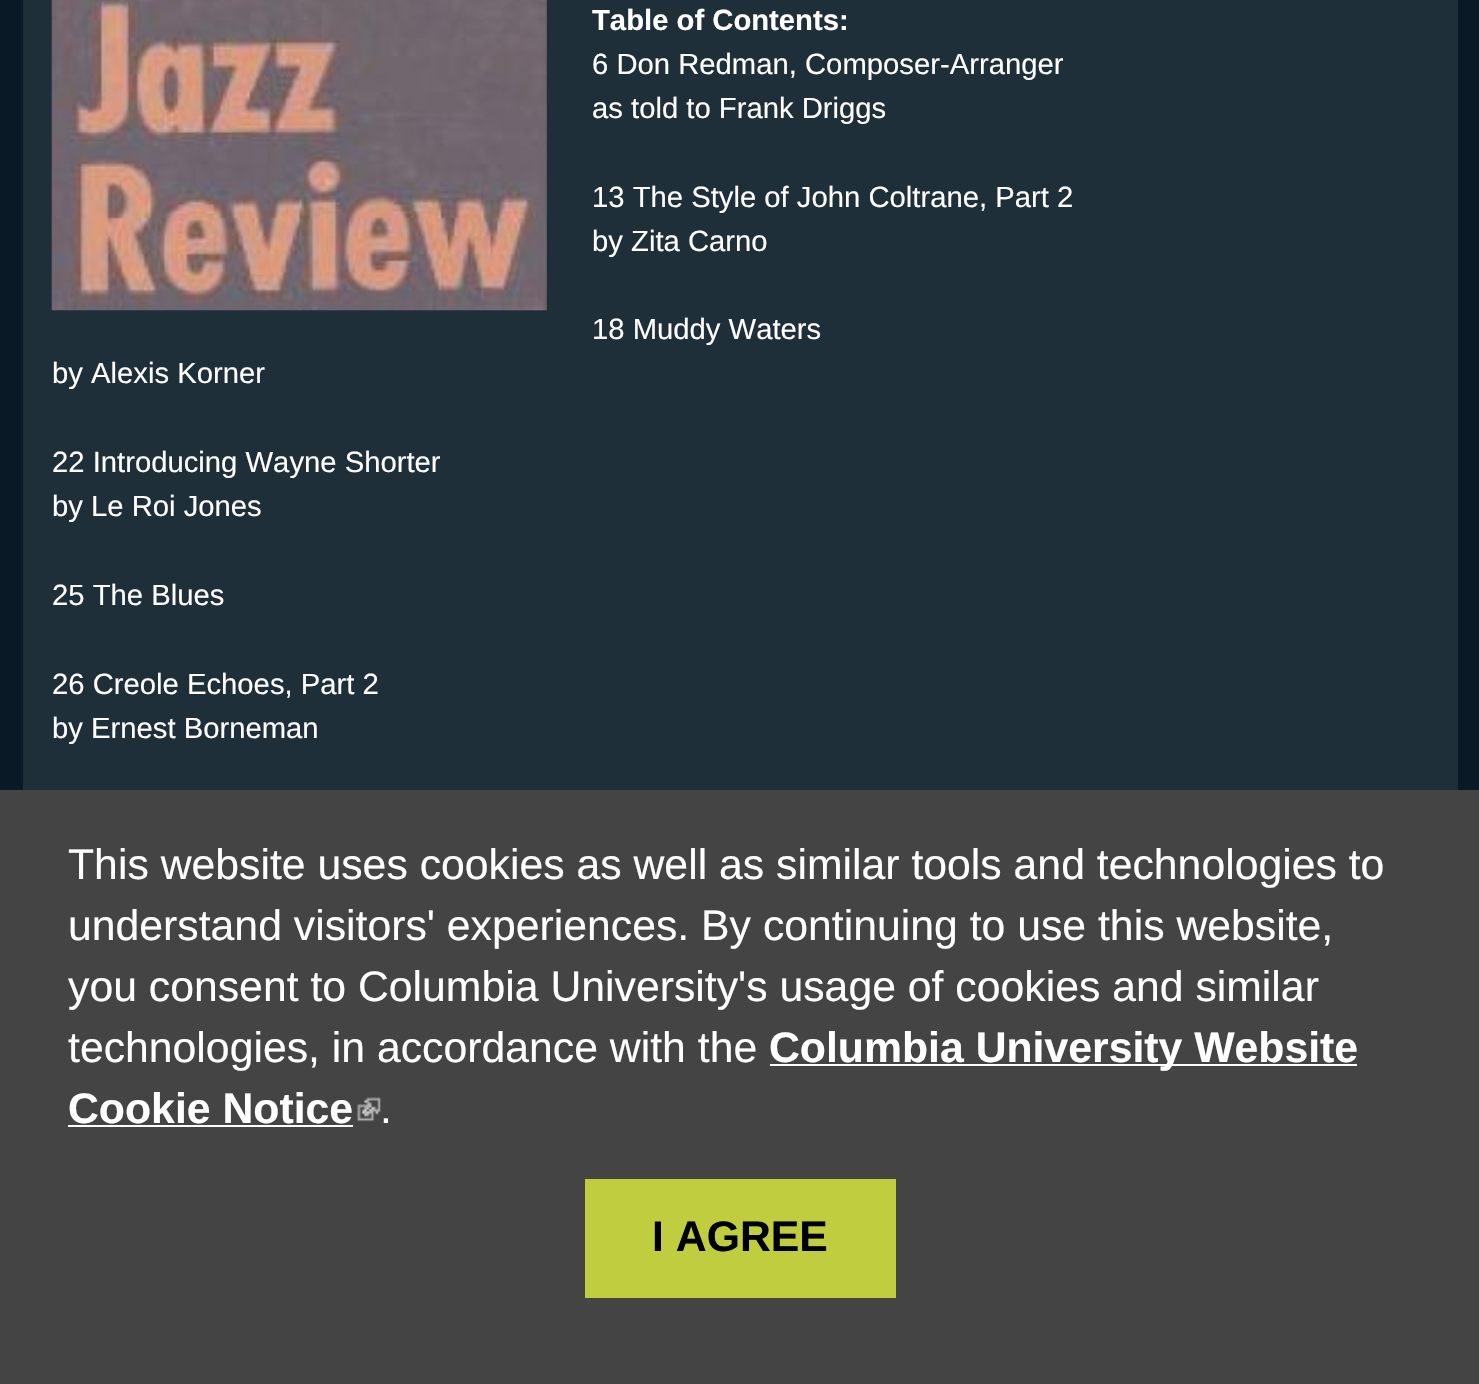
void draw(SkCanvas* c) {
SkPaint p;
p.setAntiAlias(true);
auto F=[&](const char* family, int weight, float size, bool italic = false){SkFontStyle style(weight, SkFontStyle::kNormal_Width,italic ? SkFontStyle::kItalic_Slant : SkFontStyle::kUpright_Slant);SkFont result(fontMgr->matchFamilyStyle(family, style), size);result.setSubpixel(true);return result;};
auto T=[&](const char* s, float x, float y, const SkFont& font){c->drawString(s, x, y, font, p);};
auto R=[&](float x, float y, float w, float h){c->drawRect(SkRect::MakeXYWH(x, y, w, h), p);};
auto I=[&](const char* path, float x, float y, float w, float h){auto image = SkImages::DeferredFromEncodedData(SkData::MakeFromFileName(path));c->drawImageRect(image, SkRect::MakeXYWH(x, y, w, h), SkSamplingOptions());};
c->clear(0xff091a26);
p.setColor(0xff1f2f3a);
R(23,0,1435,790);
I("1.png",51,0,496,311);
auto f1 = F("Liberation Sans",700,29.25);
p.setColor(0xffffffff);
T("Table of Contents:",592,30,f1);
auto f2 = F("Liberation Sans",400,29.25);
T("6 Don Redman, Composer-Arranger",592,74,f2);
T("as told to Frank Driggs",592,118,f2);
T("13 The Style of John Coltrane, Part 2",592,207,f2);
T("by Zita Carno",592,251,f2);
T("18 Muddy Waters",592,339,f2);
T("by Alexis Korner",52,383,f2);
T("22 Introducing Wayne Shorter",52,472,f2);
T("by Le Roi Jones",52,516,f2);
T("25 The Blues",52,605,f2);
T("26 Creole Echoes, Part 2",52,694,f2);
T("by Ernest Borneman",52,738,f2);
p.setColor(0xff444444);
R(0,790,1479,594);
auto f3 = F("Liberation Sans",400,42.75);
p.setColor(0xffffffff);
T("This website uses cookies as well as similar tools and technologies to",68,879,f3);
T("understand visitors' experiences. By continuing to use this website,",68,940,f3);
T("you consent to Columbia University's usage of cookies and similar",68,1001,f3);
T("technologies, in accordance with the",68,1062,f3);
R(770,1064,587,2);
auto f4 = F("Liberation Sans",700,42.75);
T("Columbia University Website",769,1062,f4);
T("Cookie Notice",68,1123,f4);
R(68,1125,285,2);
I("2.png",357,1097,24,25);
T(".",380,1123,f3);
p.setColor(0xffc0cd3f);
R(585,1179,311,119);
p.setColor(0xff000000);
T("I AGREE",652,1251,f4);
}
